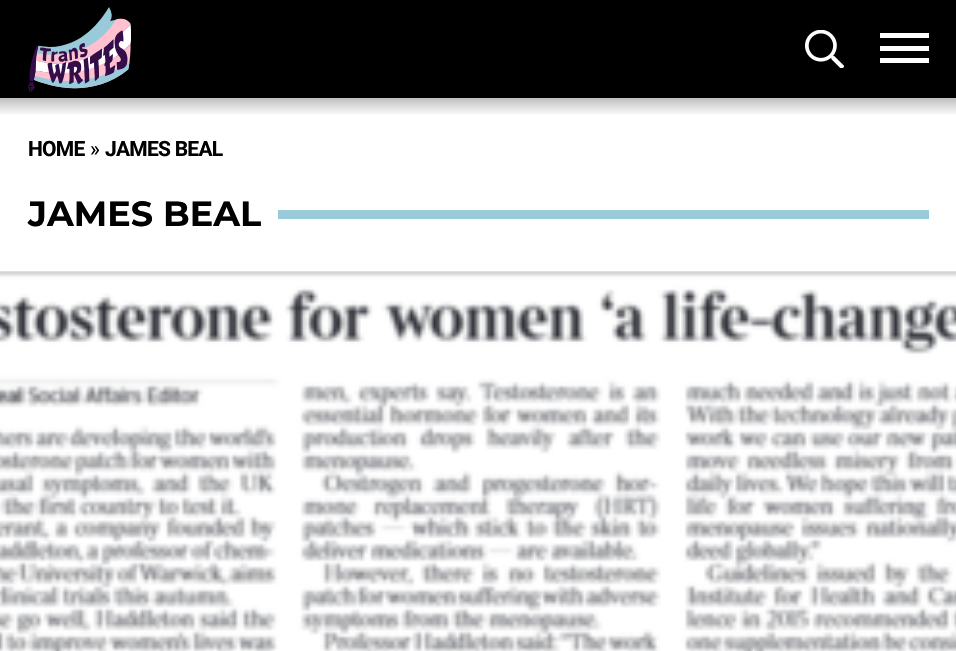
void draw(SkCanvas* c) {
SkPaint p;
p.setAntiAlias(true);
auto F=[&](const char* family, int weight, float size, bool italic = false){SkFontStyle style(weight, SkFontStyle::kNormal_Width,italic ? SkFontStyle::kItalic_Slant : SkFontStyle::kUpright_Slant);SkFont result(fontMgr->matchFamilyStyle(family, style), size);result.setSubpixel(true);return result;};
auto T=[&](const char* s, float x, float y, const SkFont& font){c->drawString(s, x, y, font, p);};
auto L=[&](const char* s, float x, float y, const SkFont& font, const SkPaint& ink, float letter, float word){std::vector<SkGlyphID> glyphs(font.countText(s, strlen(s), SkTextEncoding::kUTF8));std::vector<float> xs(glyphs.size());font.textToGlyphs(s, strlen(s), SkTextEncoding::kUTF8, glyphs);font.getXPos(glyphs, xs, x);float extra = 0;for (size_t i = 0; i < glyphs.size(); i++) {xs[i] += extra;extra += letter + word * (glyphs[i] == font.unicharToGlyph(' '));}c->drawTextBlob(SkTextBlob::MakeFromPosHGlyphs(glyphs, xs, y, font), 0, 0, ink);};
auto R=[&](float x, float y, float w, float h){c->drawRect(SkRect::MakeXYWH(x, y, w, h), p);};
auto I=[&](const char* path, float x, float y, float w, float h){auto image = SkImages::DeferredFromEncodedData(SkData::MakeFromFileName(path));c->drawImageRect(image, SkRect::MakeXYWH(x, y, w, h), SkSamplingOptions());};
c->clear(0xffffffff);
p.setColor(0xff000000);
R(0,0,956,98);
I("1.png",28,7,103,86);
I("2.png",805,30,39,38);
p.setColor(0xffffffff);
R(880,33,49,5);
R(880,46,49,5);
R(880,58,49,5);
{
const SkColor colors[] = {0xffbfbfbf,0xffffffff};
const float stops[] = {0,1};
const SkPoint ends[] = {{479,98}, {479,116}};
p.setShader(SkGradientShader::MakeLinear(ends, colors, stops, 2, SkTileMode::kClamp));
p.setAlpha(255);
}
R(0,98,956,17);
auto f1 = F("Roboto",700,21);
p.setShader(nullptr);
p.setColor(0xff000000);
L("HOME",28,156,f1,p,-.75,0);
auto f2 = F("Roboto",400,21);
T("»",90,156,f2);
L("JAMES BEAL",105,156,f1,p,-.75,0);
auto f3 = F("Montserrat",700,35);
T("JAMES BEAL",28,226,f3);
p.setColor(0xff99cad9);
R(278,210,651,9);
I("3.png",0,271,956,380);
}
